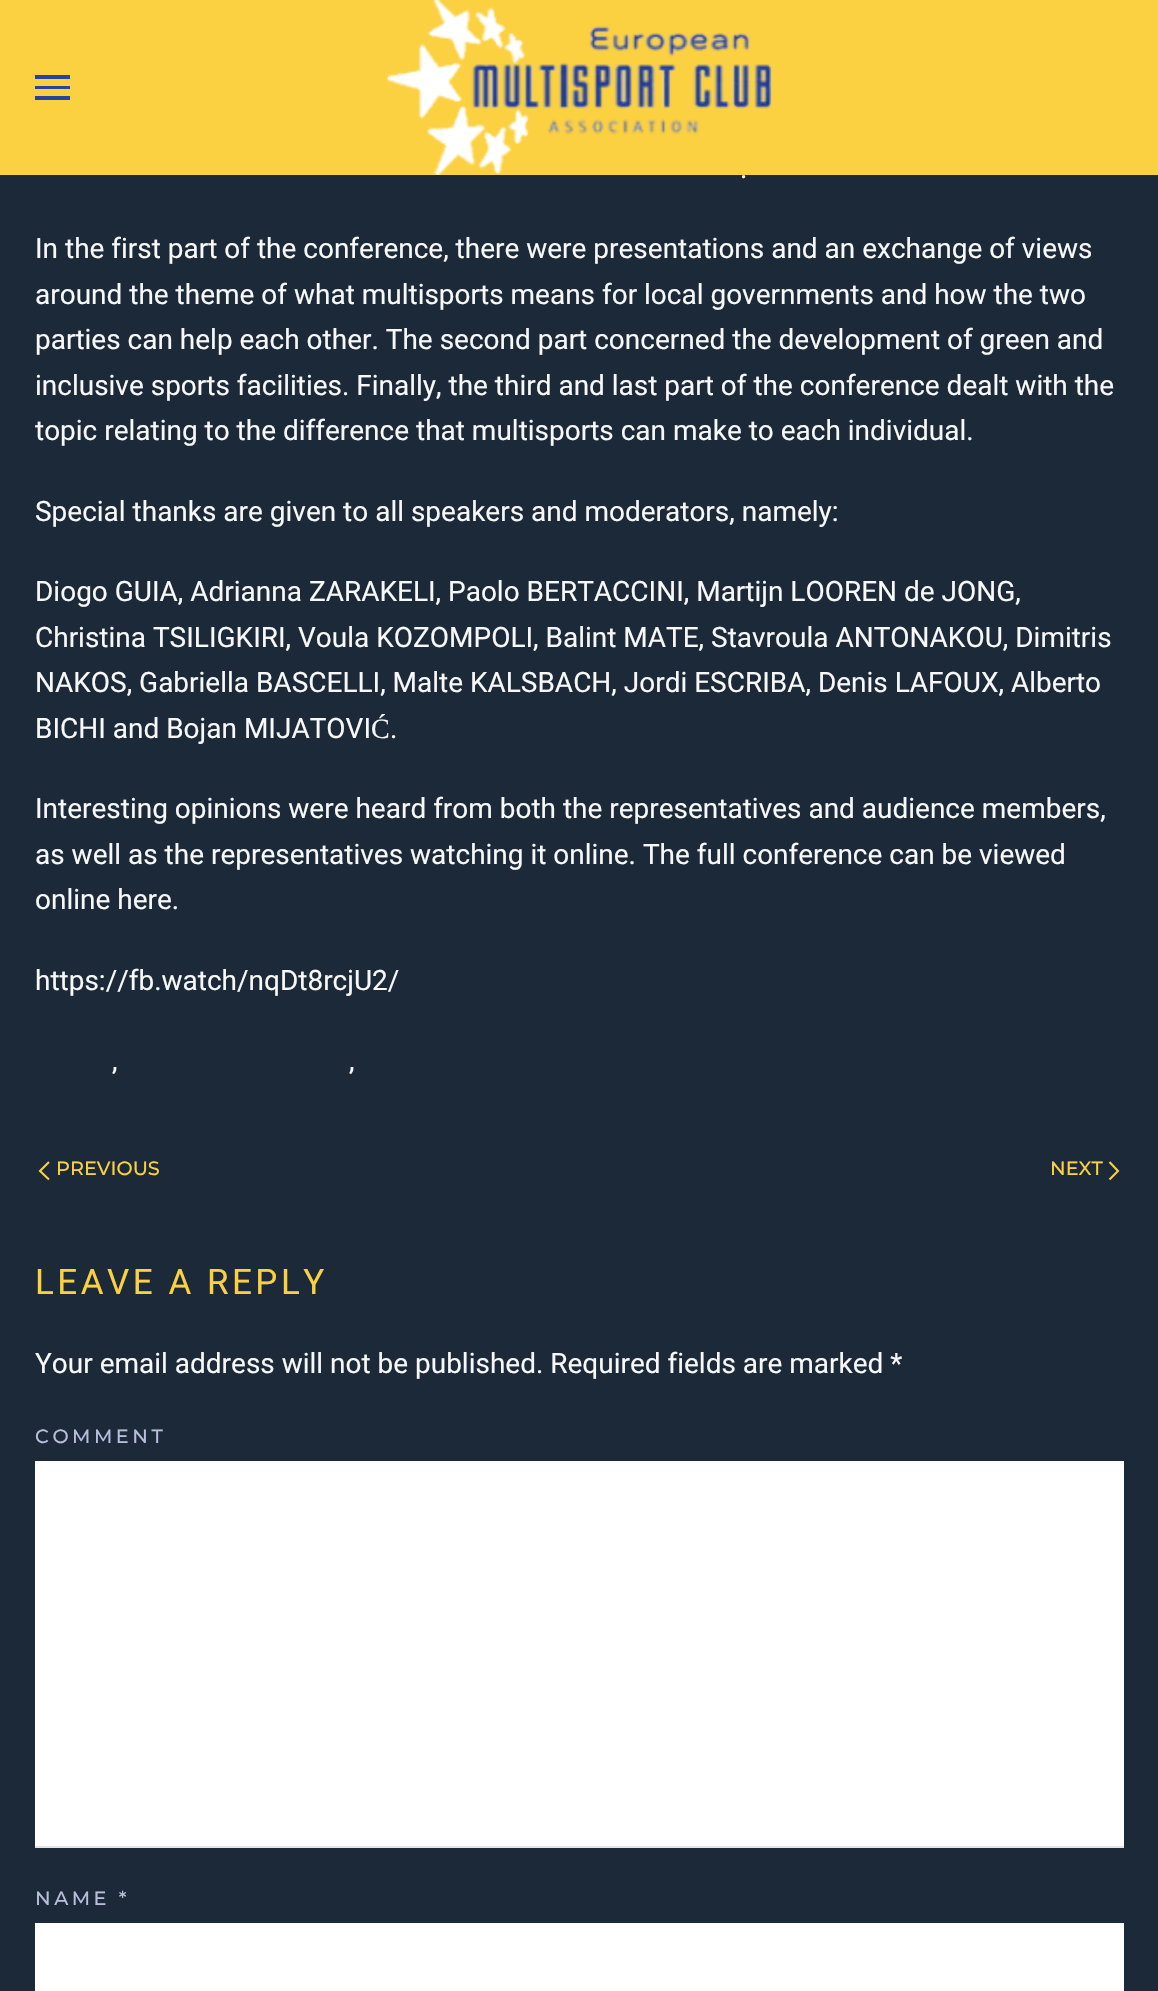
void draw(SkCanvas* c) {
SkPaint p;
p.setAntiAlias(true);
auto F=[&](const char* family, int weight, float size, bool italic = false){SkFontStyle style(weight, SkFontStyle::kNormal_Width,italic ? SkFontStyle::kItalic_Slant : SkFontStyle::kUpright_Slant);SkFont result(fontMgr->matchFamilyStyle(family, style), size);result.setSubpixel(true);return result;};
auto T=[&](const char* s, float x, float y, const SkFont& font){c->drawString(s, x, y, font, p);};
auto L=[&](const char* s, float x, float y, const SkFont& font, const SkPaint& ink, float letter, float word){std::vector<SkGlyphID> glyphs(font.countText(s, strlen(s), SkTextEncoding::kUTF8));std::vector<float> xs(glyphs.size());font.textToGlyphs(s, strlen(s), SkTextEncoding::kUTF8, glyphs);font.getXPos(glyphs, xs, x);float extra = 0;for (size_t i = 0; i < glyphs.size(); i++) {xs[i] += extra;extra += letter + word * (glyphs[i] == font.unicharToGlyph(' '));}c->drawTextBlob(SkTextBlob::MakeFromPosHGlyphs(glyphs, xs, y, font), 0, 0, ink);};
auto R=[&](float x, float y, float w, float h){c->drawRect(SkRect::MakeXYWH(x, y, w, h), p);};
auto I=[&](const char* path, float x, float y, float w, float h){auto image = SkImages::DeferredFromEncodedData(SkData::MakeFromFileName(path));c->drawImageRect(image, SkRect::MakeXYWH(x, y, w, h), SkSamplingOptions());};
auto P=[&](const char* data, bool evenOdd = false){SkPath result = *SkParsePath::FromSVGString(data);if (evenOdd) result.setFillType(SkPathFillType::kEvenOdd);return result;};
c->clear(0xff1b2938);
p.setColor(0xfffbd041);
R(0,0,1158,175);
p.setColor(0xff27449b);
R(35,75,35,4);
R(35,86,35,3);
R(35,96,35,4);
I("1.png",386,0,386,175);
auto f1 = F("Roboto",400,28);
p.setColor(0xfff8f8f8);
T(".",740,178,f1);
T("In the first part of the conference, there were presentations and an exchange of views",35,258,f1);
T("around the theme of what multisports means for local governments and how the two",35,304,f1);
T("parties can help each other. The second part concerned the development of green and",35,349,f1);
T("inclusive sports facilities. Finally, the third and last part of the conference dealt with the",35,395,f1);
T("topic relating to the difference that multisports can make to each individual.",35,440,f1);
T("Special thanks are given to all speakers and moderators, namely:",35,521,f1);
T("Diogo GUIA, Adrianna ZARAKELI, Paolo BERTACCINI, Martijn LOOREN de JONG,",35,601,f1);
T("Christina TSILIGKIRI, Voula KOZOMPOLI, Balint MATE, Stavroula ANTONAKOU, Dimitris",35,647,f1);
T("NAKOS, Gabriella BASCELLI, Malte KALSBACH, Jordi ESCRIBA, Denis LAFOUX, Alberto",35,692,f1);
T("BICHI and Bojan MIJATOVI",35,738,f1);
auto f2 = F("Liberation Serif",400,28);
T("Ć",371,738,f2);
T(".",390,738,f1);
T("Interesting opinions were heard from both the representatives and audience members,",35,818,f1);
T("as well as the representatives watching it online. The full conference can be viewed",35,864,f1);
T("online here.",35,909,f1);
T("https://fb.watch/nqDt8rcjU2/",35,990,f1);
T(",",112,1070,f1);
T(",",349,1070,f1);
p.setStroke(true);
p.setStrokeWidth(2.1);
p.setColor(0xfffbd041);
c->drawPath(P("M49 1162l-9 9l9 8.5"),p);
auto f3 = F("Montserrat",100,19.25);
p.setStroke(false);
T("PREVIOUS",56,1175,f3);
T("NEXT",1050,1175,f3);
p.setStroke(true);
c->drawPath(P("M1109.5 1162l8.5 9l-8.5 8.5"),p);
auto f4 = F("Roboto",400,35);
p.setStroke(false);
L("LEAVE A REPLY",35,1294,f4,p,3.5,0);
p.setColor(0xfff8f8f8);
T("Your email address will not be published. Required fields are marked *",35,1373,f1);
p.setColor(0xffb7bddb);
L("COMMENT",35,1443,f3,p,3.5,0);
p.setColor(0xffffffff);
R(35,1461,1089,385);
p.setColor(0xffe5e5e7);
R(35,1846,1089,2);
p.setColor(0xffb7bddb);
L("NAME *",35,1905,f3,p,3.5,0);
p.setColor(0xffffffff);
R(35,1923,1089,68);
}
